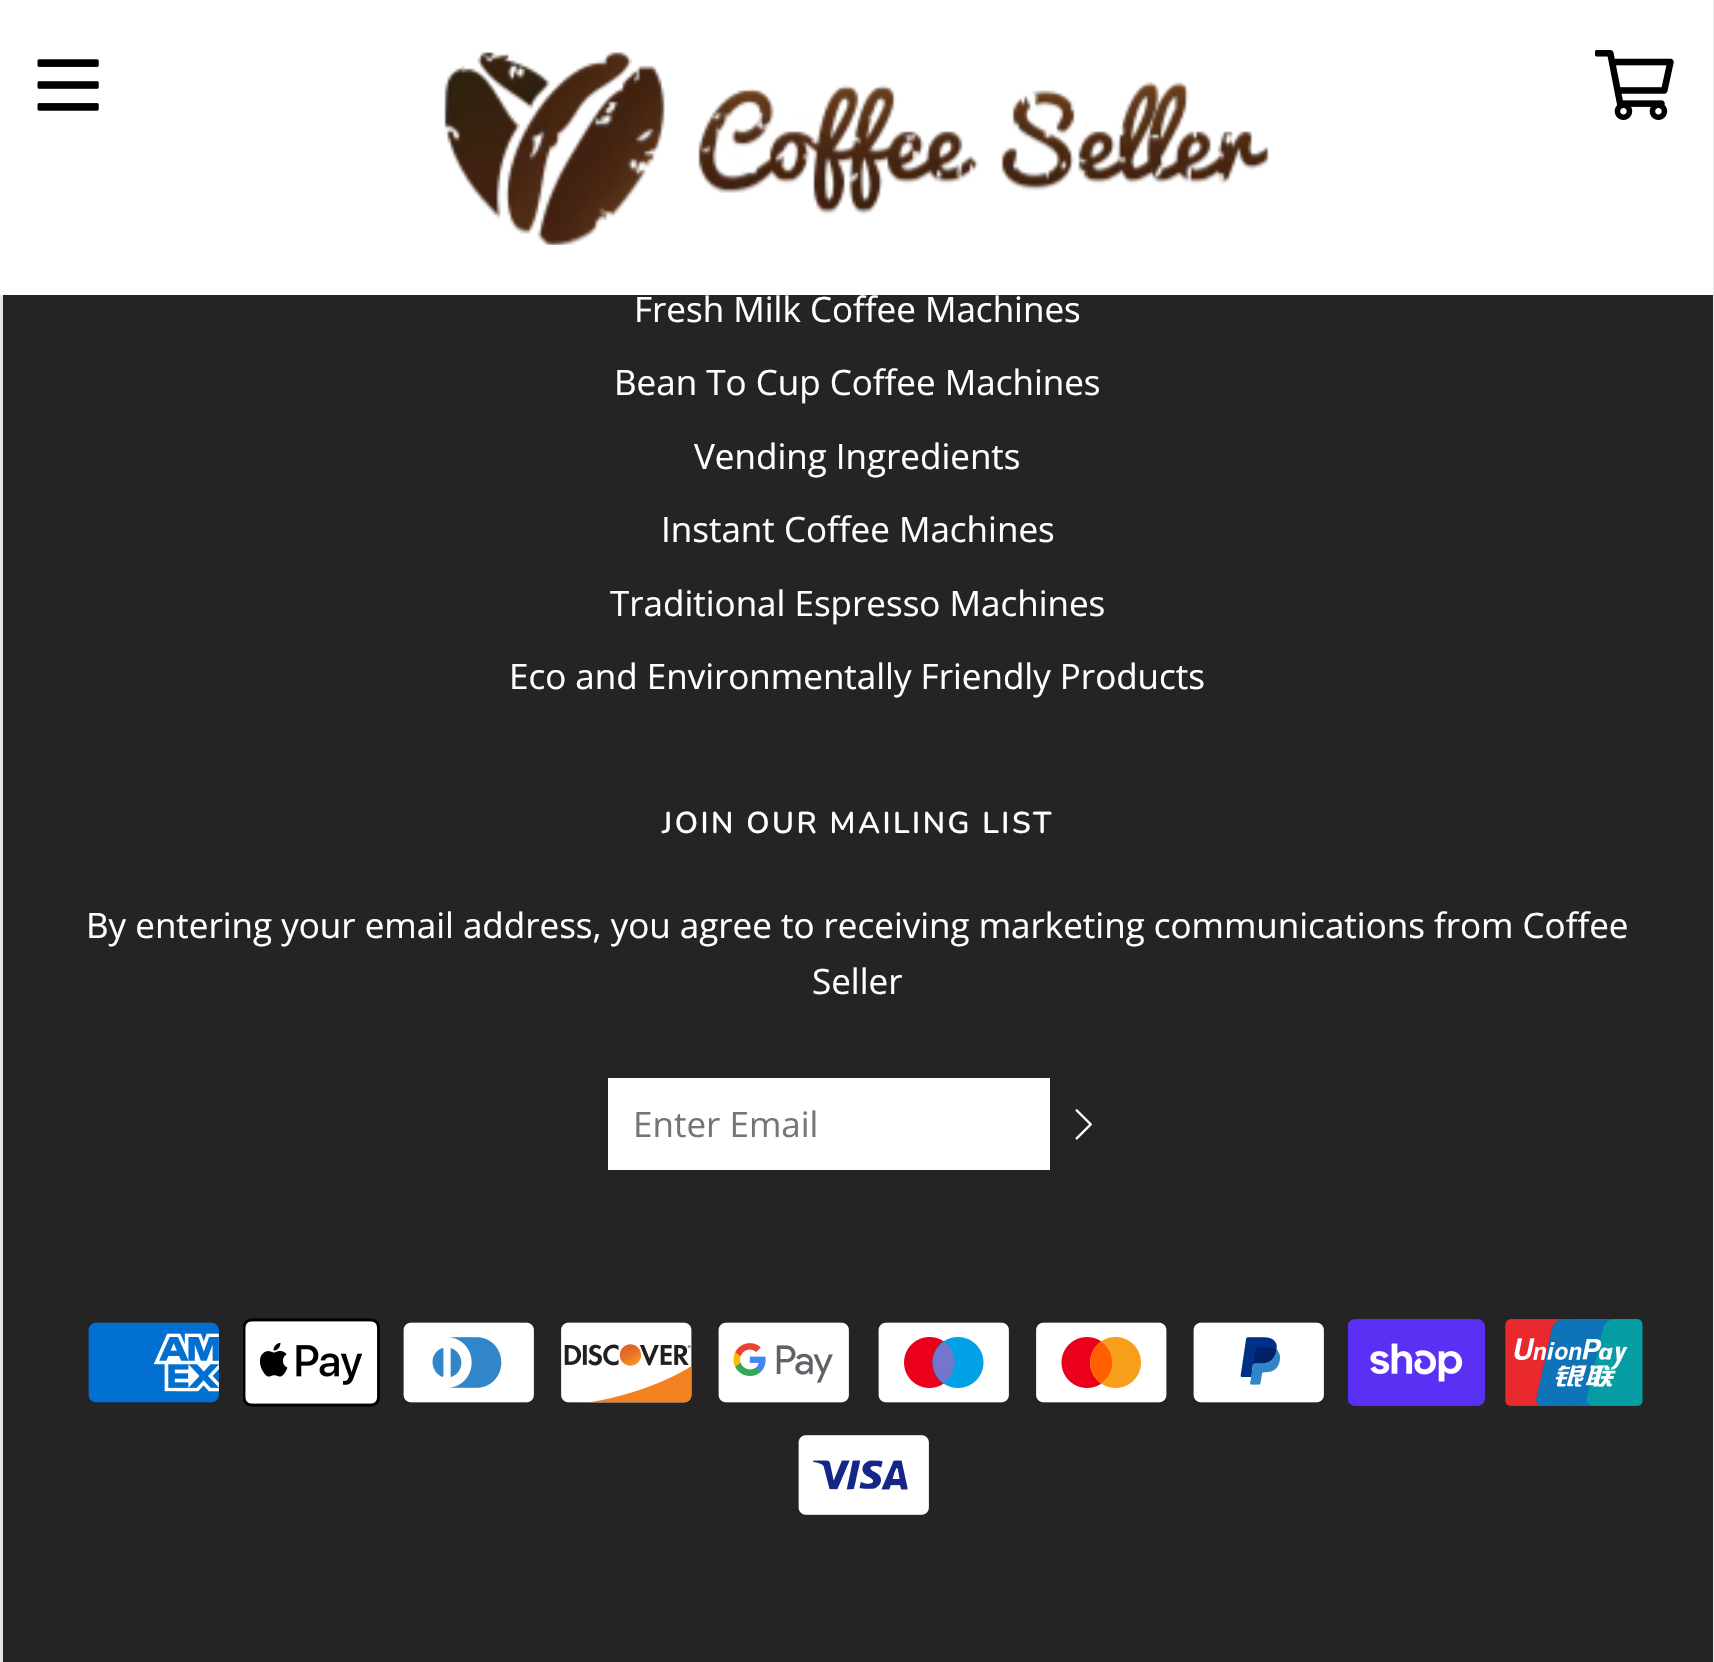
void draw(SkCanvas* c) {
SkPaint p;
p.setAntiAlias(true);
auto F=[&](const char* family, int weight, float size, bool italic = false){SkFontStyle style(weight, SkFontStyle::kNormal_Width,italic ? SkFontStyle::kItalic_Slant : SkFontStyle::kUpright_Slant);SkFont result(fontMgr->matchFamilyStyle(family, style), size);result.setSubpixel(true);return result;};
auto T=[&](const char* s, float x, float y, const SkFont& font){c->drawString(s, x, y, font, p);};
auto L=[&](const char* s, float x, float y, const SkFont& font, const SkPaint& ink, float letter, float word){std::vector<SkGlyphID> glyphs(font.countText(s, strlen(s), SkTextEncoding::kUTF8));std::vector<float> xs(glyphs.size());font.textToGlyphs(s, strlen(s), SkTextEncoding::kUTF8, glyphs);font.getXPos(glyphs, xs, x);float extra = 0;for (size_t i = 0; i < glyphs.size(); i++) {xs[i] += extra;extra += letter + word * (glyphs[i] == font.unicharToGlyph(' '));}c->drawTextBlob(SkTextBlob::MakeFromPosHGlyphs(glyphs, xs, y, font), 0, 0, ink);};
auto R=[&](float x, float y, float w, float h){c->drawRect(SkRect::MakeXYWH(x, y, w, h), p);};
auto I=[&](const char* path, float x, float y, float w, float h){auto image = SkImages::DeferredFromEncodedData(SkData::MakeFromFileName(path));c->drawImageRect(image, SkRect::MakeXYWH(x, y, w, h), SkSamplingOptions());};
c->clear(0xffe6e6e6);
p.setColor(0xffffffff);
R(0,0,1713,295);
I("1.png",37,59,62,52);
I("2.png",444,52,825,193);
I("3.png",1595,50,79,70);
p.setColor(0xff242424);
R(3,295,1710,1367);
auto f1 = F("Open Sans",400,35);
p.setColor(0xffffffff);
T("Fresh Milk Coffee Machines",634,322,f1);
T("Bean To Cup Coffee Machines",614,395,f1);
T("Vending Ingredients",694,469,f1);
T("Instant Coffee Machines",661,542,f1);
T("Traditional Espresso Machines",610,616,f1);
T("Eco and Environmentally Friendly Products",509,689,f1);
auto f2 = F("Nunito",600,30);
L("JOIN OUR MAILING LIST",662,833,f2,p,2.5,0);
T("By entering your email address, you agree to receiving marketing communications from Coffee",86,938,f1);
T("Seller",812,994,f1);
R(608,1078,442,92);
p.setColor(0xff757575);
T("Enter Email",633,1137,f1);
I("4.png",1075,1109,17,31);
I("5.png",88,1322,131,81);
I("6.png",243,1318,137,89);
I("7.png",403,1322,131,81);
I("8.png",561,1322,131,81);
I("9.png",718,1322,131,81);
I("10.png",878,1322,131,81);
I("11.png",1036,1322,131,81);
I("12.png",1193,1322,131,81);
I("13.png",1348,1319,137,87);
I("14.png",1505,1319,138,87);
I("15.png",798,1435,131,80);
}
